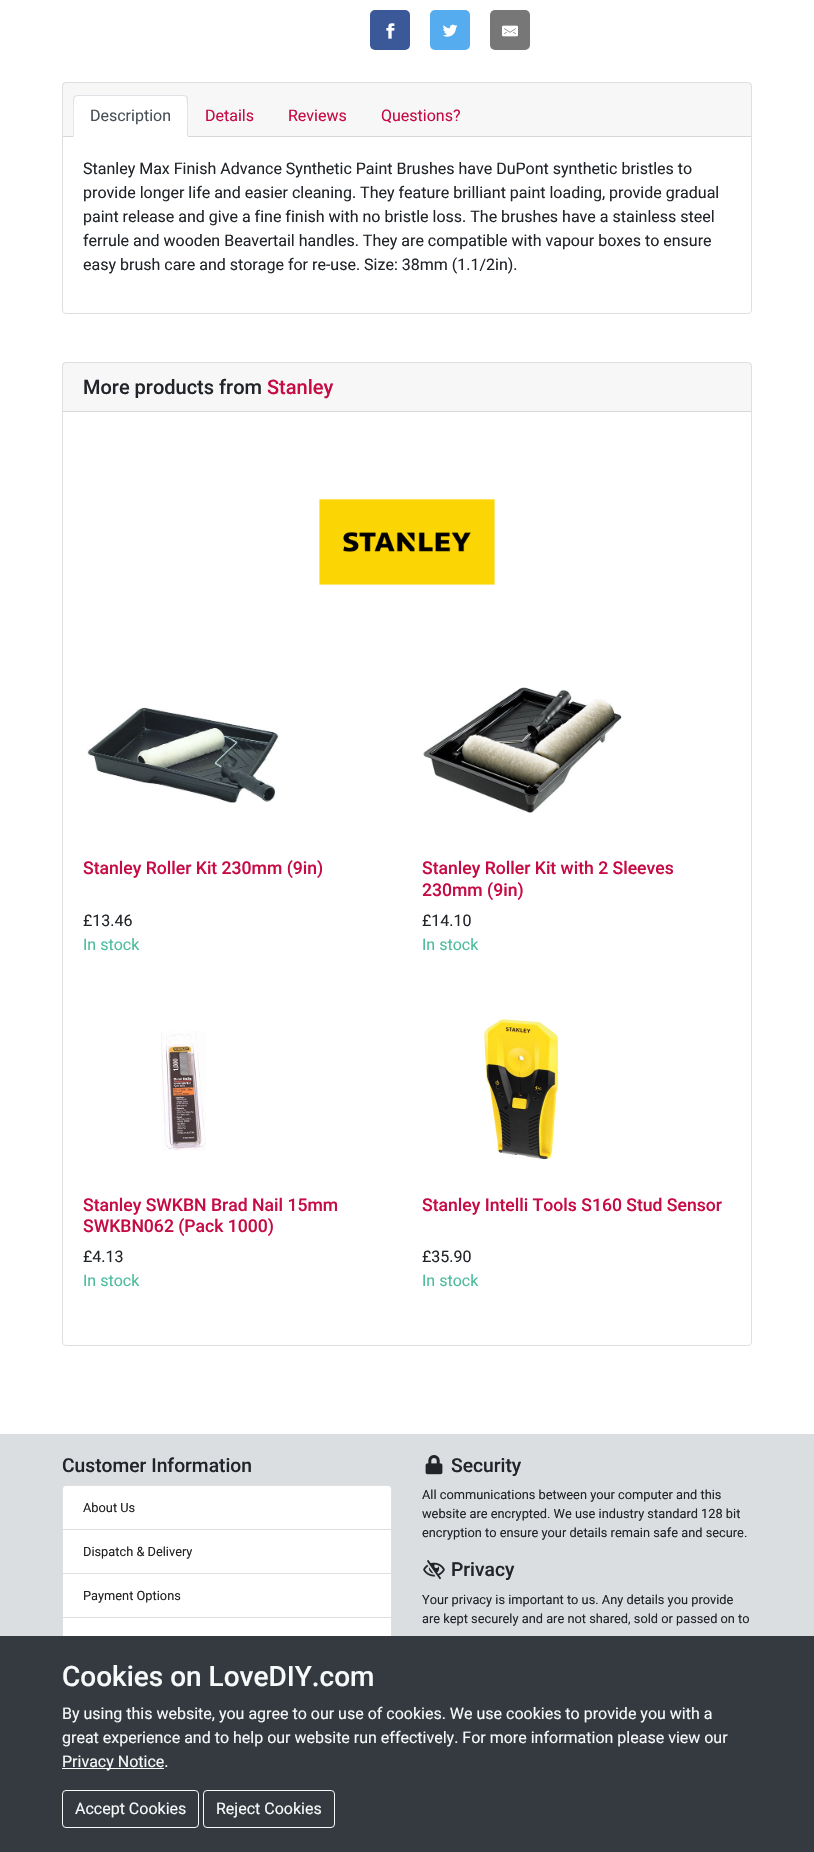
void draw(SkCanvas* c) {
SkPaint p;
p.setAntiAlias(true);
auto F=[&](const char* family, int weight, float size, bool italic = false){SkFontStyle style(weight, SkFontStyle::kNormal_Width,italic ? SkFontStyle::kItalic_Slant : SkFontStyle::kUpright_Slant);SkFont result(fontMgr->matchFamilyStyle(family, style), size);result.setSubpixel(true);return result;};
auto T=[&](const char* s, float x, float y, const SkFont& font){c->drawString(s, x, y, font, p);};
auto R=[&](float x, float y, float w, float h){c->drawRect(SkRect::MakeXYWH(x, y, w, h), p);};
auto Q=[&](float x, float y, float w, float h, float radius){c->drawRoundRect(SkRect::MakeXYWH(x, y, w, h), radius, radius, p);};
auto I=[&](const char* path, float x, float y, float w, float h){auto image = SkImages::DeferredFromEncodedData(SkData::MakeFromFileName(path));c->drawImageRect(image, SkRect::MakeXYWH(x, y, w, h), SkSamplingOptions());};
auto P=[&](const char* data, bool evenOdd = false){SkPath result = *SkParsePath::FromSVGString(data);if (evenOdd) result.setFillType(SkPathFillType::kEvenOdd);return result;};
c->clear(0xffffffff);
p.setColor(0xff3b5998);
Q(370,10,40,40,5);
I("1.png",386,23,9,16);
p.setColor(0xff55acee);
Q(430,10,40,40,5);
I("2.png",443,24,15,13);
p.setColor(0xff777777);
Q(490,10,40,40,5);
I("3.png",502,25,16,12);
p.setStroke(true);
p.setStrokeWidth(1);
p.setColor(0xffdfdfdf);
c->drawRoundRect(SkRect::MakeXYWH(62.5,82.5,689,231),3.5,3.5,p);
p.setStroke(false);
p.setColor(0x08000000);
R(63,83,688,53);
p.setColor(0xffd8d8d8);
R(63,136,688,1);
p.setColor(0xffffffff);
c->drawPath(P("M77 95h107c2 0 4 2 4 4v38h-115v-38c0-2 2-4 4-4z"),p);
p.setColor(0xffdee2e6);
c->drawPath(P("M77 95l-3 1l1 1l2-1h107l2 1l1-1l-3-1z"),p);
c->drawPath(P("M188 137v-38c0-1 0-2-1-3l-1 1c2 2 1 34 1 39z"),p);
p.setColor(0xffffffff);
c->drawPath(P("M188 137l-1-1h-113l-1 1z"),p);
p.setColor(0xffdee2e6);
c->drawPath(P("M73 137l1-1c0-5-1-37 1-39l-1-1l-1 3z"),p);
auto f1 = F("Roboto",400,16);
p.setColor(0xff495057);
T("Description",90,121,f1);
p.setColor(0xffc60b45);
T("Details",205,121,f1);
T("Reviews",288,121,f1);
T("Questions?",381,121,f1);
p.setColor(0xff212529);
T("Stanley Max Finish Advance Synthetic Paint Brushes have DuPont synthetic bristles to",83,174,f1);
T("provide longer life and easier cleaning. They feature brilliant paint loading, provide gradual",83,198,f1);
T("paint release and give a fine finish with no bristle loss. The brushes have a stainless steel",83,222,f1);
T("ferrule and wooden Beavertail handles. They are compatible with vapour boxes to ensure",83,246,f1);
T("easy brush care and storage for re-use. Size: 38mm (1.1/2in).",83,270,f1);
p.setStroke(true);
p.setColor(0xffdfdfdf);
c->drawRoundRect(SkRect::MakeXYWH(62.5,362.5,689,983),3.5,3.5,p);
p.setStroke(false);
p.setColor(0x08000000);
R(63,363,688,48);
p.setColor(0xffd8d8d8);
R(63,411,688,1);
auto f2 = F("Roboto",500,20);
p.setColor(0xff212529);
T("More products from",83,394,f2);
p.setColor(0xffc60b45);
T("Stanley",267,394,f2);
I("4.png",319,498,176,87);
I("5.png",87,707,192,96);
auto f3 = F("Roboto",500,17.6);
T("Stanley Roller Kit 230mm (9in)",83,874,f3);
p.setColor(0xff212529);
T("£13.46",83,926,f1);
p.setColor(0xff4bbc9c);
T("In stock",83,950,f1);
I("6.png",423,687,199,126);
p.setColor(0xffc60b45);
T("Stanley Roller Kit with 2 Sleeves",422,874,f3);
T("230mm (9in)",422,896,f3);
p.setColor(0xff212529);
T("£14.10",422,926,f1);
p.setColor(0xff4bbc9c);
T("In stock",422,950,f1);
I("7.png",161,1031,45,120);
p.setColor(0xffc60b45);
T("Stanley SWKBN Brad Nail 15mm",83,1211,f3);
T("SWKBN062 (Pack 1000)",83,1232,f3);
p.setColor(0xff212529);
T("£4.13",83,1262,f1);
p.setColor(0xff4bbc9c);
T("In stock",83,1286,f1);
I("8.png",482,1019,77,141);
p.setColor(0xffc60b45);
T("Stanley Intelli Tools S160 Stud Sensor",422,1211,f3);
p.setColor(0xff212529);
T("£35.90",422,1262,f1);
p.setColor(0xff4bbc9c);
T("In stock",422,1286,f1);
p.setColor(0xffdadee0);
R(0,1434,814,202);
auto f4 = F("Roboto",500,19.25);
p.setColor(0xff212529);
T("Customer Information",62,1472,f4);
p.setColor(0xffffffff);
c->drawPath(P("M66 1485h322c2 0 4 2 4 4v41h-330v-41c0-2 2-4 4-4z"),p);
p.setStroke(true);
p.setColor(0x1f000000);
c->drawPath(P("M66 1485.5h322c2 0 3.5 1.5 3.5 3.5v40.5h-329v-40.5c0-2 1.5-3.5 3.5-3.5z"),p);
auto f5 = F("Roboto",400,12.8);
p.setStroke(false);
p.setColor(0xff222222);
T("About Us",83,1512,f5);
p.setColor(0xffffffff);
c->drawRect(SkRect::MakeXYWH(62.5,1529.5,329,44),p);
p.setStroke(true);
p.setColor(0xffdfdfdf);
c->drawRect(SkRect::MakeXYWH(62.5,1529.5,329,44),p);
p.setStroke(false);
p.setColor(0xff222222);
T("Dispatch & Delivery",83,1556,f5);
p.setColor(0xffffffff);
c->drawRect(SkRect::MakeXYWH(62.5,1573.5,329,44),p);
p.setStroke(true);
p.setColor(0xffdfdfdf);
c->drawRect(SkRect::MakeXYWH(62.5,1573.5,329,44),p);
p.setStroke(false);
p.setColor(0xff222222);
T("Payment Options",83,1600,f5);
p.setColor(0xffffffff);
R(63,1618,328,18);
p.setStroke(true);
p.setColor(0xffdfdfdf);
c->drawRect(SkRect::MakeXYWH(62.5,1617.5,329,45),p);
I("9.png",425,1455,18,20);
p.setStroke(false);
p.setColor(0xff212529);
T("Security",451,1472,f4);
T("All communications between your computer and this",422,1499,f5);
T("website are encrypted. We use industry standard 128 bit",422,1518,f5);
T("encryption to ensure your details remain safe and secure.",422,1537,f5);
I("10.png",423,1560,22,20);
T("Privacy",451,1576,f4);
T("Your privacy is important to us. Any details you provide",422,1604,f5);
T("are kept securely and are not shared, sold or passed on to",422,1623,f5);
p.setColor(0xff343a40);
R(0,1636,814,216);
auto f6 = F("Roboto",500,28);
p.setColor(0xfff8f9fa);
T("Cookies on LoveDIY.com",62,1686,f6);
T("By using this website, you agree to our use of cookies. We use cookies to provide you with a",62,1719,f1);
T("great experience and to help our website run effectively. For more information please view our",62,1743,f1);
R(62,1768,102,1);
T("Privacy Notice.",62,1767,f1);
p.setStroke(true);
c->drawRoundRect(SkRect::MakeXYWH(62.5,1790.5,136,37),3.5,3.5,p);
p.setStroke(false);
T("Accept Cookies",75,1814,f1);
p.setStroke(true);
c->drawRoundRect(SkRect::MakeXYWH(203.5,1790.5,131,37),3.5,3.5,p);
p.setStroke(false);
T("Reject Cookies",216,1814,f1);
}
